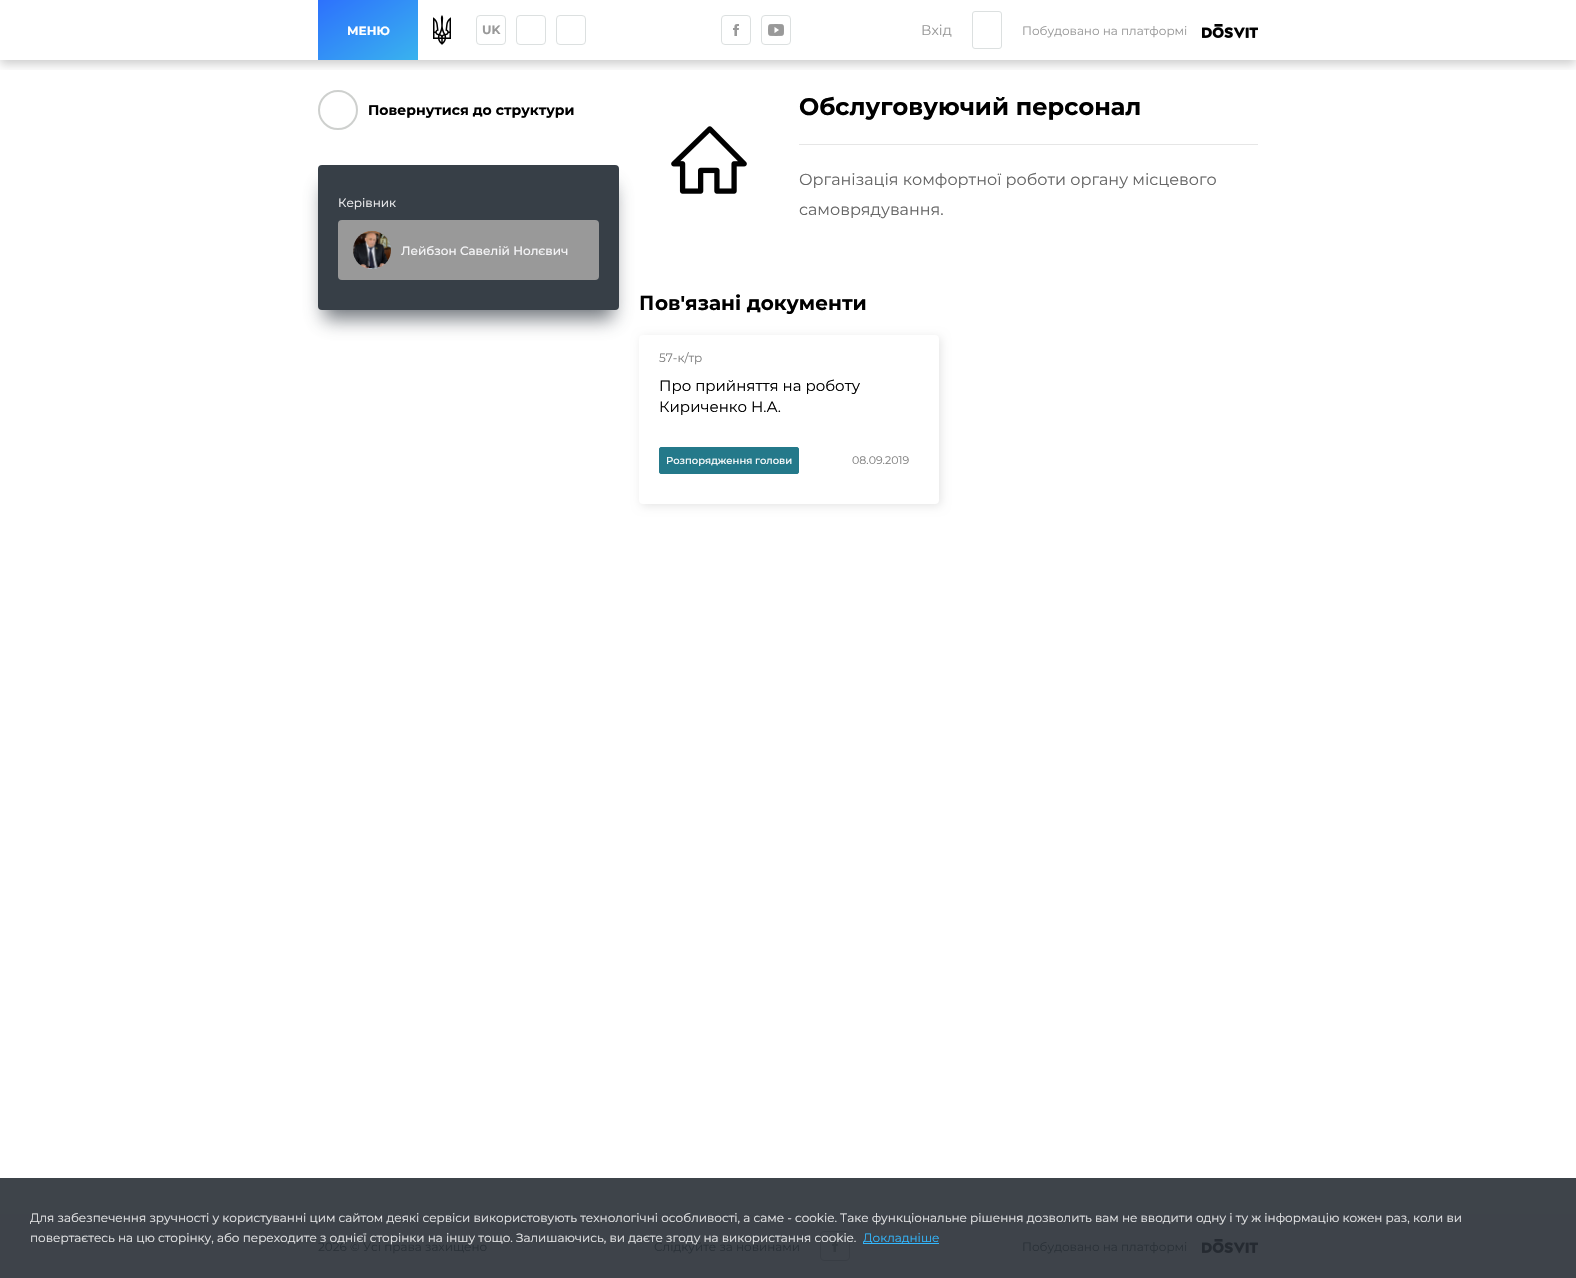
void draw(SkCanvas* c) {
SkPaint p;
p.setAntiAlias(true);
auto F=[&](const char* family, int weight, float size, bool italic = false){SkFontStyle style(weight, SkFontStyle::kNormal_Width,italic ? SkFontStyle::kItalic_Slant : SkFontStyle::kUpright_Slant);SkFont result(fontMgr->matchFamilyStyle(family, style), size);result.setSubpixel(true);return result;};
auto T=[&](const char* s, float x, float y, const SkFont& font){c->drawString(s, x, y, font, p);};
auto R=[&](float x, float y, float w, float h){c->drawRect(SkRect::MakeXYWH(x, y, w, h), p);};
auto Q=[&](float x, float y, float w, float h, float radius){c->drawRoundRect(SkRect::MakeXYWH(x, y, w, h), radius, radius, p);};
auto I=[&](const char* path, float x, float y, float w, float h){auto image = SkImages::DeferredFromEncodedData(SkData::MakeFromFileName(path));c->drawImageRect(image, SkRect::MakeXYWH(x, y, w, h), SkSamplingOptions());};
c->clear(0xffffffff);
p.setColor(0xff3e444a);
R(0,1178,1576,36);
c->save();
c->clipRect(SkRect::MakeXYWH(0,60,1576,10));
p.setColor(0x33000000);
p.setMaskFilter(SkMaskFilter::MakeBlur(kNormal_SkBlurStyle, 5));
c->drawRect(SkRect::MakeXYWH(0,4,1576,60),p);
p.setMaskFilter(nullptr);
c->restore();
{
const SkColor colors[] = {0xff2d71fd,0xff39b3ee};
const float stops[] = {0,1};
const SkPoint ends[] = {{339,-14}, {397,74}};
p.setShader(SkGradientShader::MakeLinear(ends, colors, stops, 2, SkTileMode::kClamp));
p.setAlpha(255);
}
R(318,0,100,60);
auto f1 = F("Montserrat",700,12);
p.setShader(nullptr);
p.setColor(0xffffffff);
T("МЕНЮ",347,35,f1);
I("1.png",433,15,18,30);
p.setStroke(true);
p.setStrokeWidth(1);
p.setColor(0xffdce0e0);
c->drawRoundRect(SkRect::MakeXYWH(476.5,15.5,29,29),3.5,3.5,p);
p.setStroke(false);
p.setColor(0xff999999);
T("UK",482,34,f1);
p.setStroke(true);
p.setColor(0xffdce0e0);
c->drawRoundRect(SkRect::MakeXYWH(516.5,15.5,29,29),3.5,3.5,p);
c->drawRoundRect(SkRect::MakeXYWH(556.5,15.5,29,29),3.5,3.5,p);
c->drawRoundRect(SkRect::MakeXYWH(721.5,15.5,29,29),3.5,3.5,p);
I("2.png",733,24,6,12);
c->drawRoundRect(SkRect::MakeXYWH(761.5,15.5,29,29),3.5,3.5,p);
I("3.png",768,24,16,12);
auto f2 = F("Montserrat",400,14);
p.setStroke(false);
p.setColor(0xff999999);
T("Вхід",921,35,f2);
p.setStroke(true);
p.setColor(0xffdce0e0);
c->drawRoundRect(SkRect::MakeXYWH(972.5,11.5,29,37),2.5,2.5,p);
auto f3 = F("Montserrat",400,12);
p.setStroke(false);
p.setColor(0xff999999);
T("Побудовано на платформі",1022,35,f3);
I("4.png",1202,24,56,15);
p.setStroke(true);
p.setStrokeWidth(2);
p.setColor(0xffced0ce);
c->drawCircle(338,110,19,p);
auto f4 = F("Montserrat",700,14);
p.setStroke(false);
p.setColor(0xff000000);
T("Повернутися до структури",368,115,f4);
p.setColor(0xb3373f47);
p.setMaskFilter(SkMaskFilter::MakeBlur(kNormal_SkBlurStyle, 9));
c->drawRect(SkRect::MakeXYWH(324,186,289,133),p);
p.setMaskFilter(nullptr);
p.setColor(0xff373f47);
Q(318,165,301,145,4);
p.setColor(0xfff5f5f7);
T("Керівник",338,207,f3);
p.setColor(0xff999999);
Q(338,220,261,60,4);
I("5.png",353,231,38,38);
auto f5 = F("Montserrat",500,12);
p.setColor(0xfff5f5f7);
T("Лейбзон Савелій Нолєвич",401,255,f5);
I("6.png",671,126,76,68);
p.setColor(0xffe6e6e6);
R(799,144,459,1);
auto f6 = F("Montserrat",700,24);
p.setColor(0xff000000);
T("Обслуговуючий персонал",799,115,f6);
auto f7 = F("Montserrat",400,16);
p.setColor(0xff666666);
T("Організація комфортної роботи органу місцевого",799,185,f7);
T("самоврядування.",799,215,f7);
auto f8 = F("Noto Sans",700,20);
p.setColor(0xff000000);
T("П",639,310,f8);
auto f9 = F("Montserrat",700,20);
T("ов'язані документи",655,310,f9);
p.setColor(0x1a000000);
p.setMaskFilter(SkMaskFilter::MakeBlur(kNormal_SkBlurStyle, 5));
c->drawRoundRect(SkRect::MakeXYWH(641,337,300,169),4,4,p);
p.setMaskFilter(nullptr);
p.setColor(0xffffffff);
Q(639,335,300,169,4);
p.setColor(0xff808080);
T("57-к/тр",659,362,f3);
auto f10 = F("Montserrat",400,15);
p.setColor(0xff000000);
T("Про прийняття на роботу",659,391,f10);
T("Кириченко Н.А.",659,412,f10);
p.setColor(0xff24798a);
c->drawRoundRect(SkRect::MakeXYWH(659.5,447.5,139,26),1.5,1.5,p);
p.setStroke(true);
p.setStrokeWidth(1);
c->drawRoundRect(SkRect::MakeXYWH(659.5,447.5,139,26),1.5,1.5,p);
auto f11 = F("Montserrat",500,10);
p.setStroke(false);
p.setColor(0xffffffff);
T("Розпорядження голови",666,464,f11);
auto f12 = F("Montserrat",400,11);
p.setColor(0xff808080);
T("08.09.2019",852,464,f12);
p.setColor(0xff3e434a);
R(0,1214,1576,64);
p.setColor(0xffe2e3e4);
T("Для забезпечення зручності у користуванні цим сайтом деякі сервіси використовують технологічні особливості, а саме - cookie. Таке функціональне рішення дозволить вам не вводити одну і ту ж інформацію кожен раз, коли ви",30,1222,f3);
p.setStroke(true);
p.setColor(0xff383d44);
c->drawRoundRect(SkRect::MakeXYWH(820.5,1231.5,29,29),3.5,3.5,p);
I("7.png",832,1240,6,12);
p.setStroke(false);
p.setColor(0xffe2e3e4);
T("повертаєтесь на цю сторінку, або переходите з однієї сторінки на іншу тощо. Залишаючись, ви даєте згоду на використання cookie.",30,1242,f3);
p.setColor(0xff33b8ff);
R(863,1243,76,1);
T("Докладніше",863,1242,f3);
p.setColor(0xff2a3138);
T("2026 © Усі права захищено",318,1251,f3);
T("Слідкуйте за новинами",654,1251,f3);
T("Побудовано на платформі",1022,1251,f3);
I("8.png",1202,1239,56,15);
}
